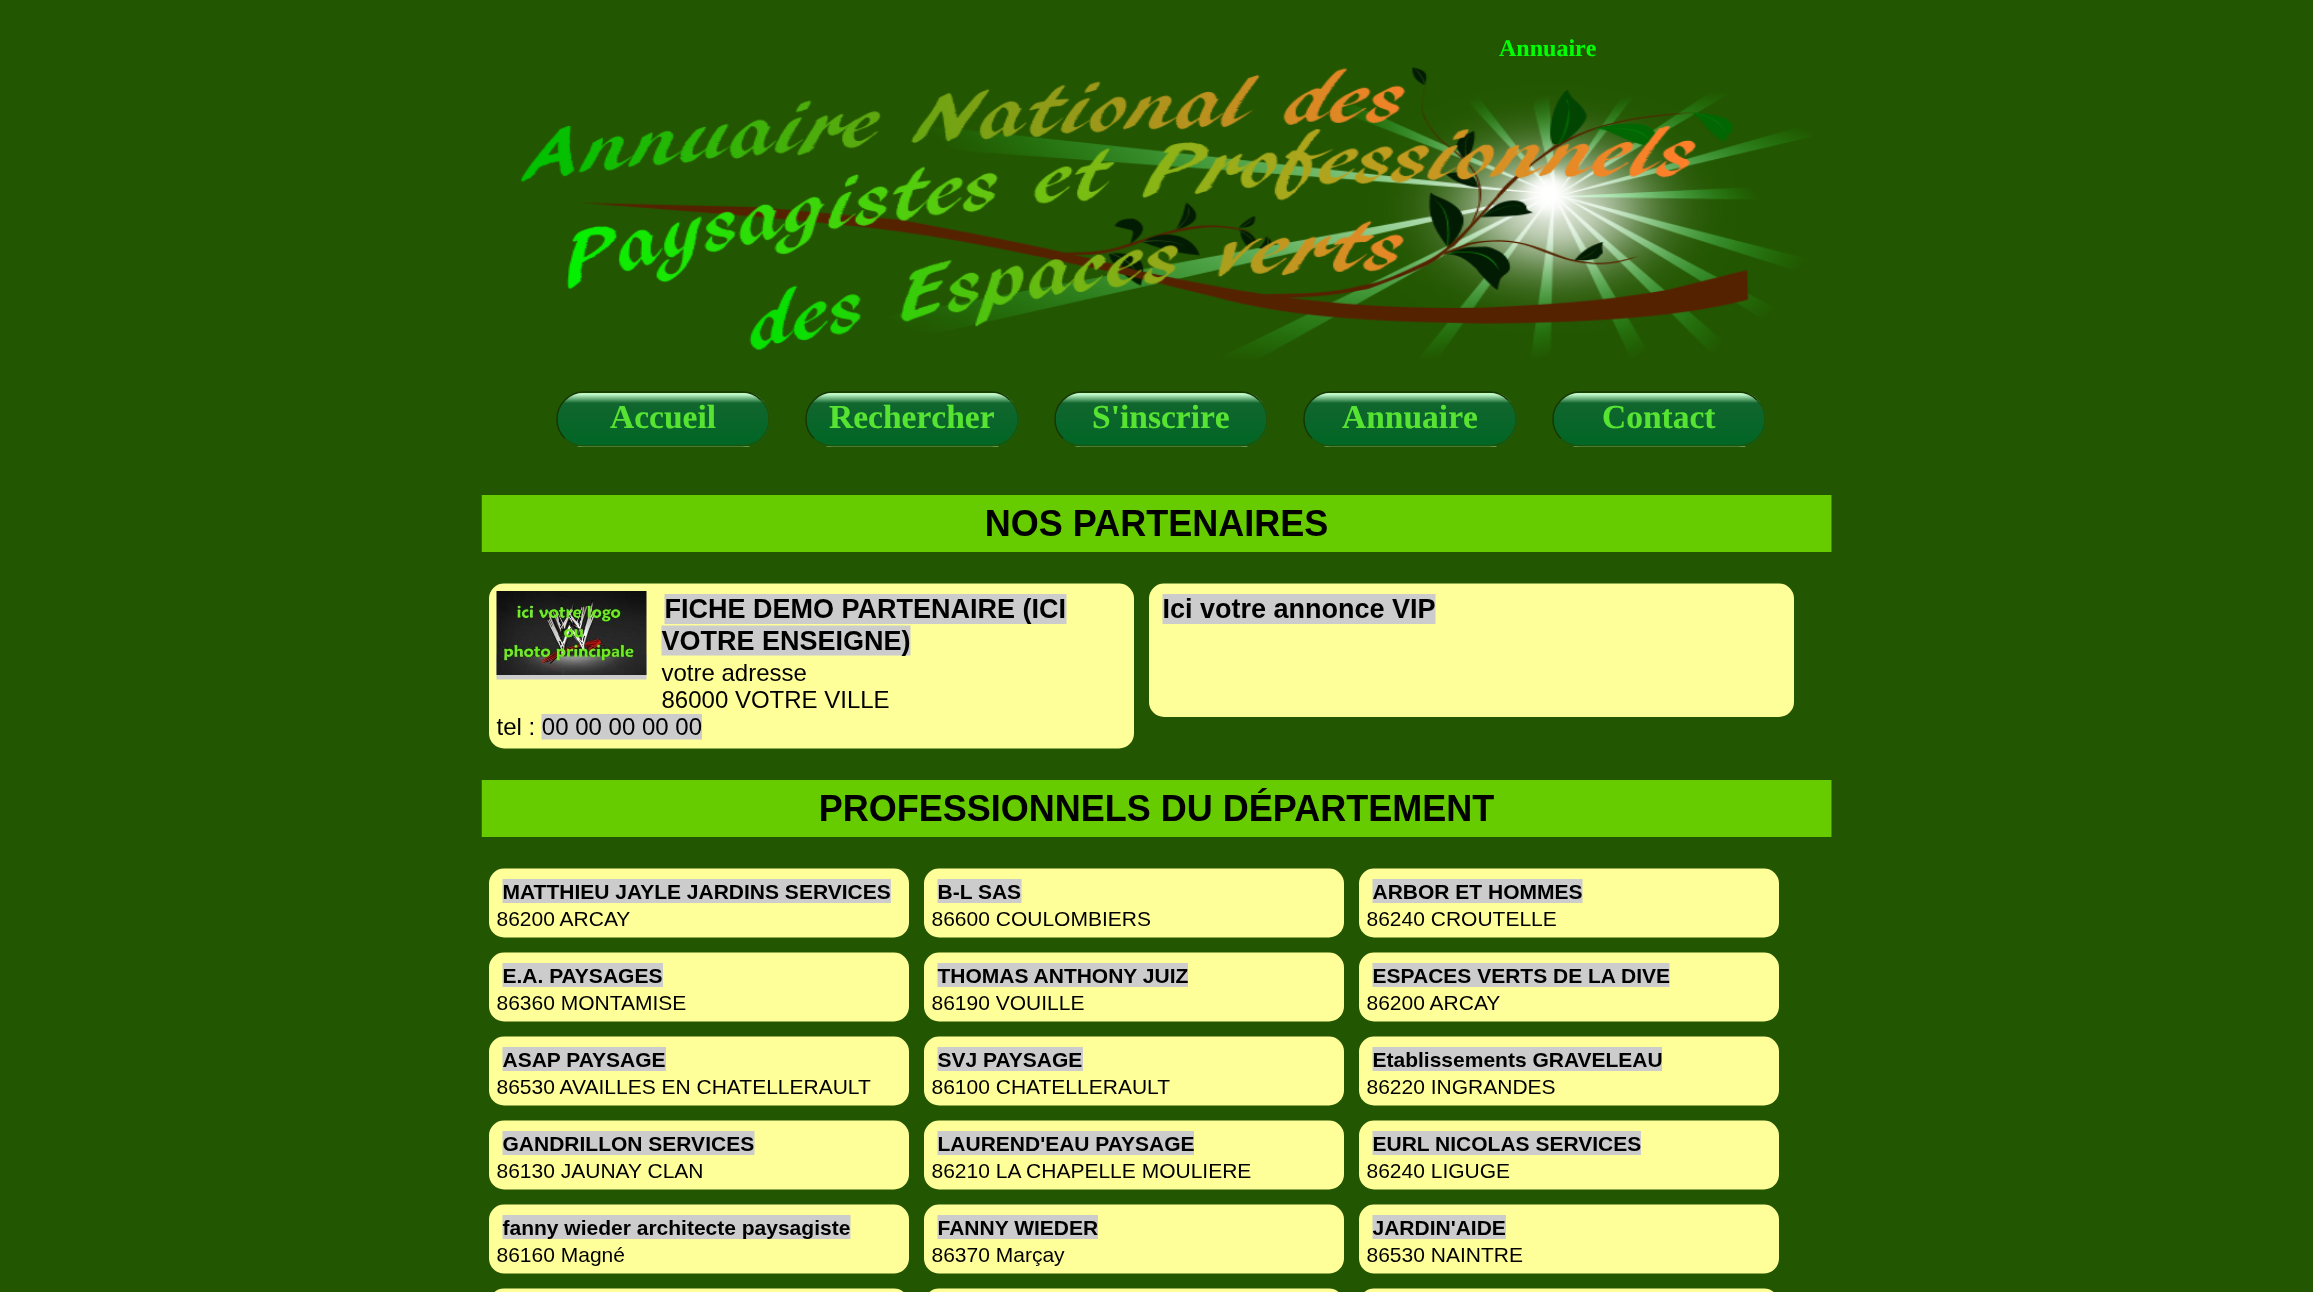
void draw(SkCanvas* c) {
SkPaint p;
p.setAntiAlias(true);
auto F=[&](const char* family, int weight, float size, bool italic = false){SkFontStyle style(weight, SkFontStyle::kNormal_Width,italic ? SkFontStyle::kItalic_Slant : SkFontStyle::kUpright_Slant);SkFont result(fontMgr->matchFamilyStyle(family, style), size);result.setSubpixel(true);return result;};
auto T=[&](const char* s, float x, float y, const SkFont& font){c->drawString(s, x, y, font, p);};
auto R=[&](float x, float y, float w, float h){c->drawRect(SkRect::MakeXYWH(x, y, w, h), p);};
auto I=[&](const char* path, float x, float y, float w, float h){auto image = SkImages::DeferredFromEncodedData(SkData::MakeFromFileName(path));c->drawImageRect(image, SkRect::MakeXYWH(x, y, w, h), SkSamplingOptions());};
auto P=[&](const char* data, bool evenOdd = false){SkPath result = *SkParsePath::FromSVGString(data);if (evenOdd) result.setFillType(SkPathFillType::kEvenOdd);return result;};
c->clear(0xff225600);
auto f1 = F("Liberation Serif",700,24);
p.setColor(0xff00ff00);
T("Annuaire",1499,56,f1);
I("1.png",520,67,1292,292);
c->save();
c->clipPath(P("M584 392h159c15 0 27 12 27 27v1c0 15-12 27-27 27h-159c-15 0-27-12-27-27v-1c0-15 12-27 27-27z"),true);
{
const SkColor colors[] = {0xffbef7c6,0xff11662e,0xff006625};
const float stops[] = {.03,.19,1};
const SkPoint ends[] = {{663,393}, {663,446}};
p.setShader(SkGradientShader::MakeLinear(ends, colors, stops, 3, SkTileMode::kClamp));
p.setAlpha(255);
}
R(557,393,213,53);
{
const SkColor colors[] = {0xffbef7c6,0xff11662e,0xff006625};
const float stops[] = {.03,.19,1};
const SkPoint ends[] = {{663,446}, {663,498}};
p.setShader(SkGradientShader::MakeLinear(ends, colors, stops, 3, SkTileMode::kClamp));
p.setAlpha(255);
}
R(577,446,173,1);
c->restore();
p.setStroke(true);
p.setStrokeWidth(1.5);
p.setShader(nullptr);
p.setColor(0xff205102);
c->drawPath(P("M761 400c5 5 8 11.5 8 18.5v1.5c0 7-3 13.5-8 18.5c-5 5-11.5 7.5-18.5 7.5h-159c-7 0-13.5-2.5-18.5-7.5"),p);
p.setColor(0xff153601);
c->drawPath(P("M565 438.5c-5-5-8-11.5-8-18.5v-1.5c0-7 3-13.5 8-18.5c5-5 11.5-8 18.5-8h159c7 0 13.5 3 18.5 8"),p);
auto f2 = F("Liberation Serif",700,33.5);
p.setStroke(false);
p.setColor(0xff56e332);
T("Accueil",610,428,f2);
c->save();
c->clipPath(P("M833 392h159c15 0 27 12 27 27v1c0 15-12 27-27 27h-159c-15 0-27-12-27-27v-1c0-15 12-27 27-27z"),true);
{
const SkColor colors[] = {0xffbef7c6,0xff11662e,0xff006625};
const float stops[] = {.03,.19,1};
const SkPoint ends[] = {{912,393}, {912,446}};
p.setShader(SkGradientShader::MakeLinear(ends, colors, stops, 3, SkTileMode::kClamp));
p.setAlpha(255);
}
R(806,393,213,53);
{
const SkColor colors[] = {0xffbef7c6,0xff11662e,0xff006625};
const float stops[] = {.03,.19,1};
const SkPoint ends[] = {{912,446}, {912,498}};
p.setShader(SkGradientShader::MakeLinear(ends, colors, stops, 3, SkTileMode::kClamp));
p.setAlpha(255);
}
R(826,446,173,1);
c->restore();
p.setStroke(true);
p.setShader(nullptr);
p.setColor(0xff205102);
c->drawPath(P("M1010 400c5 5 8 11.5 8 18.5v1.5c0 7-3 13.5-8 18.5c-5 5-11.5 7.5-18.5 7.5h-159c-7 0-13.5-2.5-18.5-7.5"),p);
p.setColor(0xff153601);
c->drawPath(P("M814 438.5c-5-5-8-11.5-8-18.5v-1.5c0-7 3-13.5 8-18.5c5-5 11.5-8 18.5-8h159c7 0 13.5 3 18.5 8"),p);
p.setStroke(false);
p.setColor(0xff56e332);
T("Rechercher",829,428,f2);
c->save();
c->clipPath(P("M1082 392h159c15 0 27 12 27 27v1c0 15-12 27-27 27h-159c-15 0-27-12-27-27v-1c0-15 12-27 27-27z"),true);
{
const SkColor colors[] = {0xffbef7c6,0xff11662e,0xff006625};
const float stops[] = {.03,.19,1};
const SkPoint ends[] = {{1161,393}, {1161,446}};
p.setShader(SkGradientShader::MakeLinear(ends, colors, stops, 3, SkTileMode::kClamp));
p.setAlpha(255);
}
R(1055,393,213,53);
{
const SkColor colors[] = {0xffbef7c6,0xff11662e,0xff006625};
const float stops[] = {.03,.19,1};
const SkPoint ends[] = {{1161,446}, {1161,498}};
p.setShader(SkGradientShader::MakeLinear(ends, colors, stops, 3, SkTileMode::kClamp));
p.setAlpha(255);
}
R(1075,446,173,1);
c->restore();
p.setStroke(true);
p.setShader(nullptr);
p.setColor(0xff205102);
c->drawPath(P("M1259 400c5 5 8 11.5 8 18.5v1.5c0 7-3 13.5-8 18.5c-5 5-11.5 7.5-18.5 7.5h-159c-7 0-13.5-2.5-18.5-7.5"),p);
p.setColor(0xff153601);
c->drawPath(P("M1063 438.5c-5-5-8-11.5-8-18.5v-1.5c0-7 3-13.5 8-18.5c5-5 11.5-8 18.5-8h159c7 0 13.5 3 18.5 8"),p);
p.setStroke(false);
p.setColor(0xff56e332);
T("S'inscrire",1092,428,f2);
c->save();
c->clipPath(P("M1331 392h159c15 0 27 12 27 27v1c0 15-12 27-27 27h-159c-15 0-27-12-27-27v-1c0-15 12-27 27-27z"),true);
{
const SkColor colors[] = {0xffbef7c6,0xff11662e,0xff006625};
const float stops[] = {.03,.19,1};
const SkPoint ends[] = {{1410,393}, {1410,446}};
p.setShader(SkGradientShader::MakeLinear(ends, colors, stops, 3, SkTileMode::kClamp));
p.setAlpha(255);
}
R(1304,393,213,53);
{
const SkColor colors[] = {0xffbef7c6,0xff11662e,0xff006625};
const float stops[] = {.03,.19,1};
const SkPoint ends[] = {{1410,446}, {1410,498}};
p.setShader(SkGradientShader::MakeLinear(ends, colors, stops, 3, SkTileMode::kClamp));
p.setAlpha(255);
}
R(1324,446,173,1);
c->restore();
p.setStroke(true);
p.setShader(nullptr);
p.setColor(0xff205102);
c->drawPath(P("M1508 400c5 5 8 11.5 8 18.5v1.5c0 7-3 13.5-8 18.5c-5 5-11.5 7.5-18.5 7.5h-159c-7 0-13.5-2.5-18.5-7.5"),p);
p.setColor(0xff153601);
c->drawPath(P("M1312 438.5c-5-5-8-11.5-8-18.5v-1.5c0-7 3-13.5 8-18.5c5-5 11.5-8 18.5-8h159c7 0 13.5 3 18.5 8"),p);
p.setStroke(false);
p.setColor(0xff56e332);
T("Annuaire",1342,428,f2);
c->save();
c->clipPath(P("M1580 392h159c15 0 27 12 27 27v1c0 15-12 27-27 27h-159c-15 0-27-12-27-27v-1c0-15 12-27 27-27z"),true);
{
const SkColor colors[] = {0xffbef7c6,0xff11662e,0xff006625};
const float stops[] = {.03,.19,1};
const SkPoint ends[] = {{1659,393}, {1659,446}};
p.setShader(SkGradientShader::MakeLinear(ends, colors, stops, 3, SkTileMode::kClamp));
p.setAlpha(255);
}
R(1553,393,213,53);
{
const SkColor colors[] = {0xffbef7c6,0xff11662e,0xff006625};
const float stops[] = {.03,.19,1};
const SkPoint ends[] = {{1659,446}, {1659,498}};
p.setShader(SkGradientShader::MakeLinear(ends, colors, stops, 3, SkTileMode::kClamp));
p.setAlpha(255);
}
R(1573,446,173,1);
c->restore();
p.setStroke(true);
p.setShader(nullptr);
p.setColor(0xff205102);
c->drawPath(P("M1757 400c5 5 8 11.5 8 18.5v1.5c0 7-3 13.5-8 18.5c-5 5-11.5 7.5-18.5 7.5h-159c-7 0-13.5-2.5-18.5-7.5"),p);
p.setColor(0xff153601);
c->drawPath(P("M1561 438.5c-5-5-8-11.5-8-18.5v-1.5c0-7 3-13.5 8-18.5c5-5 11.5-8 18.5-8h159c7 0 13.5 3 18.5 8"),p);
p.setStroke(false);
p.setColor(0xff56e332);
T("Contact",1602,428,f2);
I("2.png",481,495,1351,797);
}
